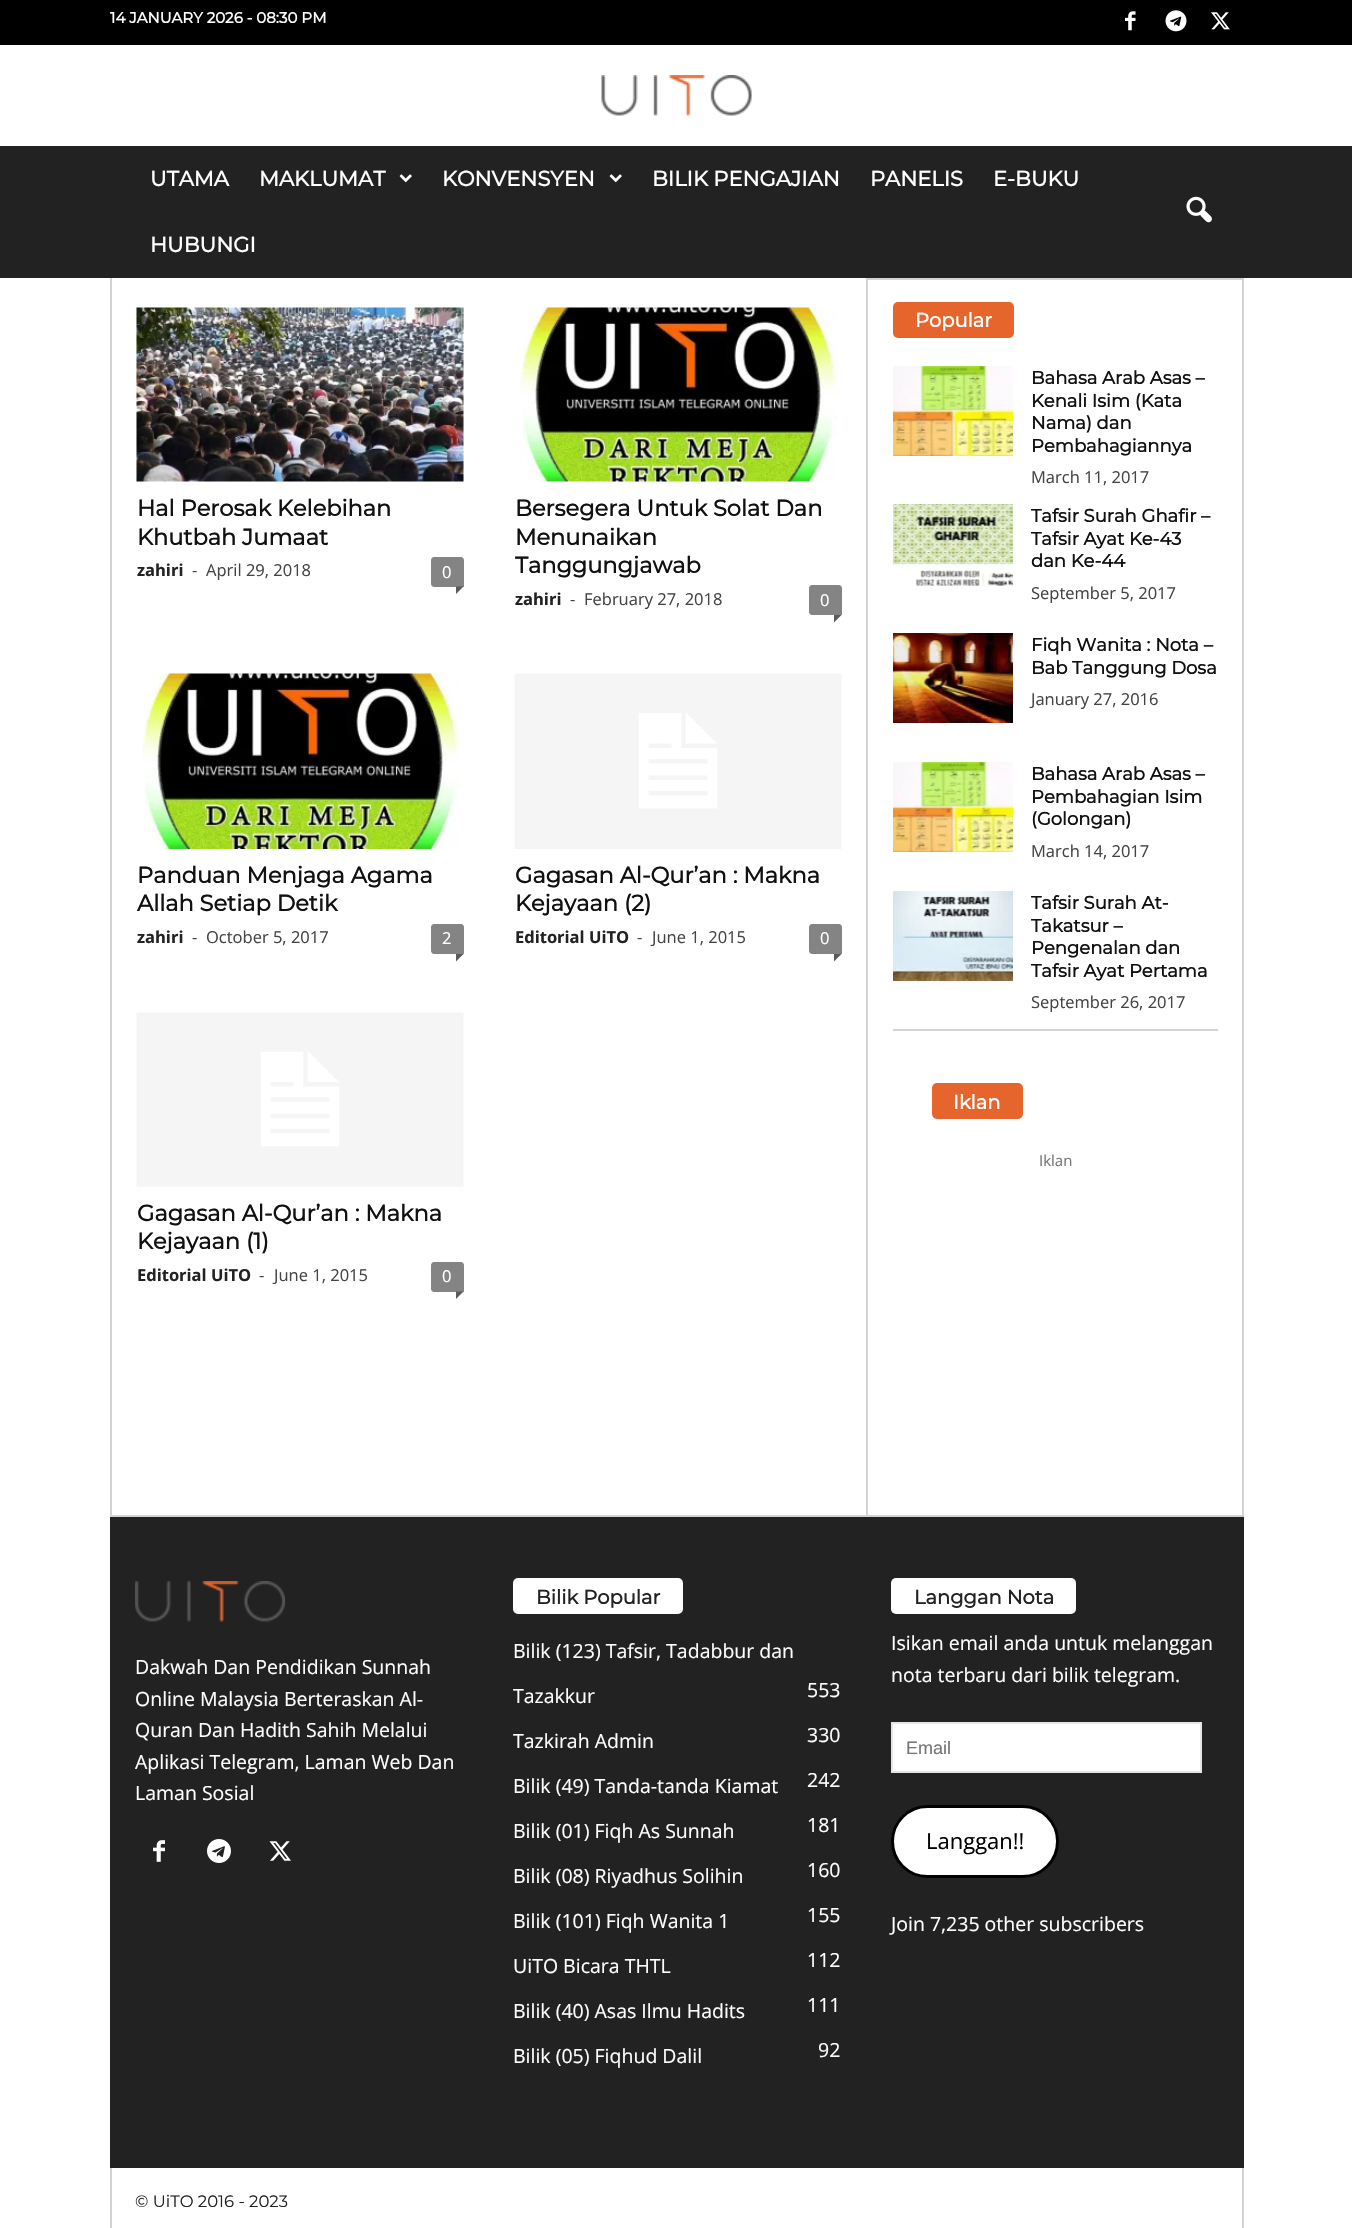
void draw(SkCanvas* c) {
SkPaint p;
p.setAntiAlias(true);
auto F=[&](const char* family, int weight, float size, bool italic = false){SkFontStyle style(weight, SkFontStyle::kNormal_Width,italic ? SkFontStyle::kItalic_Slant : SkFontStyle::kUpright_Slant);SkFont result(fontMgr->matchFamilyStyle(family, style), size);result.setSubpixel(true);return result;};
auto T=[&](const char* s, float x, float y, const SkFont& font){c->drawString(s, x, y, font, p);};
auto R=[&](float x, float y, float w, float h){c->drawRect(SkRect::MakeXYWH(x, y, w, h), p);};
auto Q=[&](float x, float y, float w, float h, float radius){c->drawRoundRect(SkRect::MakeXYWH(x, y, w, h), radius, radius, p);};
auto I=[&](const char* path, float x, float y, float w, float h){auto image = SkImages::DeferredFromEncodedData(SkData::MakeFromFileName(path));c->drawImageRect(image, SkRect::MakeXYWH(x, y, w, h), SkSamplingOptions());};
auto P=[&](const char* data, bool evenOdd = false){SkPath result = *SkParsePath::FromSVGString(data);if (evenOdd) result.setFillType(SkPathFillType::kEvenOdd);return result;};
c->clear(0xffffffff);
p.setColor(0xff000000);
R(0,0,1352,45);
auto f1 = F("Montserrat",700,15);
p.setColor(0xffffffff);
T("14 JANUARY 2026 - 08:30 PM",110,23,f1);
I("1.png",1125,11,11,20);
I("2.png",1165,10,22,22);
I("3.png",1211,12,19,18);
I("4.png",601,75,151,41);
p.setColor(0xff222222);
R(0,146,1352,132);
auto f2 = F("Montserrat",700,21);
p.setColor(0xffffffff);
T("UTAMA",150,186,f2);
T("MAKLUMAT",259,186,f2);
I("5.png",399,174,13,9);
T("KONVENSYEN",442,186,f2);
I("5.png",609,174,13,9);
T("BILIK PENGAJIAN",652,186,f2);
T("PANELIS",870,186,f2);
T("E-BUKU",993,186,f2);
T("HUBUNGI",150,252,f2);
I("6.png",1186,196,26,27);
p.setColor(0xffd3d3d3);
R(110,1515,1134,2);
R(110,278,2,1237);
I("7.png",136,307,328,175);
auto f3 = F("Montserrat",700,22.5);
p.setColor(0xff111111);
T("Hal Perosak Kelebihan",137,516,f3);
T("Khutbah Jumaat",137,545,f3);
auto f4 = F("Open Sans",700,16.5);
p.setColor(0xff222222);
T("zahiri",137,576,f4);
auto f5 = F("Open Sans",400,16.5);
p.setColor(0xff444444);
T("-",192,576,f5);
T("April 29, 2018",206,576,f5);
p.setColor(0xff848484);
c->drawPath(P("M434 557h27c1.5 0 3 1.5 3 3v27h-30c-1.5 0-3-1.5-3-3v-24c0-1.5 1.5-3 3-3z"),p);
p.setColor(0xffffffff);
T("0",442,578,f5);
p.setColor(0xff5b5b5b);
c->drawPath(P("M456 586.5h7.5l-7.5 7.5z"),p);
I("8.png",520,307,318,175);
p.setColor(0xff111111);
T("Bersegera Untuk Solat Dan",515,516,f3);
T("Menunaikan",515,545,f3);
T("Tanggungjawab",515,573,f3);
p.setColor(0xff222222);
T("zahiri",515,605,f4);
p.setColor(0xff444444);
T("-",570,605,f5);
T("February 27, 2018",584,605,f5);
p.setColor(0xff848484);
c->drawPath(P("M812 585h27c1.5 0 3 1.5 3 3v27h-30c-1.5 0-3-1.5-3-3v-24c0-1.5 1.5-3 3-3z"),p);
p.setColor(0xffffffff);
T("0",820,606,f5);
p.setColor(0xff5b5b5b);
c->drawPath(P("M834 615h7.5l-7.5 7.5z"),p);
I("9.png",142,673,318,176);
p.setColor(0xff111111);
T("Panduan Menjaga Agama",137,883,f3);
T("Allah Setiap Detik",137,911,f3);
p.setColor(0xff222222);
T("zahiri",137,943,f4);
p.setColor(0xff444444);
T("-",192,943,f5);
T("October 5, 2017",206,943,f5);
p.setColor(0xff848484);
c->drawPath(P("M434 924h27c1.5 0 3 1.5 3 3v27h-30c-1.5 0-3-1.5-3-3v-24c0-1.5 1.5-3 3-3z"),p);
p.setColor(0xffffffff);
T("2",442,944,f5);
p.setColor(0xff5b5b5b);
c->drawPath(P("M456 954h7.5l-7.5 7.5z"),p);
I("10.png",514,673,328,176);
p.setColor(0xff111111);
T("Gagasan Al-Qur’an : Makna",515,883,f3);
T("Kejayaan (2)",515,911,f3);
p.setColor(0xff222222);
T("Editorial UiTO",515,943,f4);
p.setColor(0xff444444);
T("-",637,943,f5);
T("June 1, 2015",652,943,f5);
p.setColor(0xff848484);
c->drawPath(P("M812 924h27c1.5 0 3 1.5 3 3v27h-30c-1.5 0-3-1.5-3-3v-24c0-1.5 1.5-3 3-3z"),p);
p.setColor(0xffffffff);
T("0",820,944,f5);
p.setColor(0xff5b5b5b);
c->drawPath(P("M834 954h7.5l-7.5 7.5z"),p);
I("11.png",136,1012,328,175);
p.setColor(0xff111111);
T("Gagasan Al-Qur’an : Makna",137,1221,f3);
T("Kejayaan (1)",137,1249,f3);
p.setColor(0xff222222);
T("Editorial UiTO",137,1281,f4);
p.setColor(0xff444444);
T("-",259,1281,f5);
T("June 1, 2015",274,1281,f5);
p.setColor(0xff848484);
c->drawPath(P("M434 1262h27c1.5 0 3 1.5 3 3v27h-30c-1.5 0-3-1.5-3-3v-24c0-1.5 1.5-3 3-3z"),p);
p.setColor(0xffffffff);
T("0",442,1282,f5);
p.setColor(0xff5b5b5b);
c->drawPath(P("M456 1291.5h7.5l-7.5 7.5z"),p);
p.setColor(0xffd3d3d3);
R(866,278,2,1237);
R(1242,278,2,1237);
R(867,278,377,2);
p.setColor(0xffe5652d);
Q(893,302,121,36,5);
auto f6 = F("Montserrat",700,19.5);
p.setColor(0xffffffff);
T("Popular",915,327,f6);
I("12.png",893,366,120,90);
auto f7 = F("Montserrat",700,18);
p.setColor(0xff111111);
T("Bahasa Arab Asas –",1031,384,f7);
T("Kenali Isim (Kata",1031,407,f7);
T("Nama) dan",1031,429,f7);
T("Pembahagiannya",1031,452,f7);
p.setColor(0xff444444);
T("March 11, 2017",1031,483,f5);
I("13.png",893,504,120,82);
p.setColor(0xff111111);
T("Tafsir Surah Ghafir –",1031,522,f7);
T("Tafsir Ayat Ke-43",1031,545,f7);
T("dan Ke-44",1031,567,f7);
p.setColor(0xff444444);
T("September 5, 2017",1031,599,f5);
I("14.png",893,633,120,90);
p.setColor(0xff111111);
T("Fiqh Wanita : Nota –",1031,651,f7);
T("Bab Tanggung Dosa",1031,674,f7);
p.setColor(0xff444444);
T("January 27, 2016",1031,705,f5);
I("12.png",893,762,120,90);
p.setColor(0xff111111);
T("Bahasa Arab Asas –",1031,780,f7);
T("Pembahagian Isim",1031,803,f7);
T("(Golongan)",1031,825,f7);
p.setColor(0xff444444);
T("March 14, 2017",1031,857,f5);
I("15.png",893,891,120,90);
p.setColor(0xff111111);
T("Tafsir Surah At-",1031,909,f7);
T("Takatsur –",1031,932,f7);
T("Pengenalan dan",1031,954,f7);
T("Tafsir Ayat Pertama",1031,977,f7);
p.setColor(0xff444444);
T("September 26, 2017",1031,1008,f5);
p.setColor(0xffd3d3d3);
R(893,1029,325,2);
p.setColor(0xffe5652d);
Q(932,1083,91,36,5);
p.setColor(0xffffffff);
T("Iklan",953,1109,f6);
auto f8 = F("Open Sans",400,15);
p.setColor(0xff757575);
T("Iklan",1039,1166,f8);
p.setColor(0xff222222);
R(110,1517,1134,651);
I("16.png",135,1581,150,41);
auto f9 = F("Open Sans",400,19.5);
p.setColor(0xffffffff);
T("Dakwah Dan Pendidikan Sunnah",135,1674,f9);
T("Online Malaysia Berteraskan Al-",135,1706,f9);
T("Quran Dan Hadith Sahih Melalui",135,1737,f9);
T("Aplikasi Telegram, Laman Web Dan",135,1769,f9);
T("Laman Sosial",135,1800,f9);
I("17.png",153,1840,12,22);
I("18.png",207,1839,24,24);
I("19.png",269,1841,22,20);
Q(513,1578,170,36,5);
p.setColor(0xff222222);
T("Bilik Popular",536,1604,f6);
p.setColor(0xffffffff);
T("Bilik (123) Tafsir, Tadabbur dan",513,1658,f9);
T("Tazakkur",513,1703,f9);
T("553",807,1697,f9);
T("Tazkirah Admin",513,1748,f9);
T("330",807,1742,f9);
T("Bilik (49) Tanda-tanda Kiamat",513,1793,f9);
T("242",807,1787,f9);
T("Bilik (01) Fiqh As Sunnah",513,1838,f9);
T("181",807,1832,f9);
T("Bilik (08) Riyadhus Solihin",513,1883,f9);
T("160",807,1877,f9);
T("Bilik (101) Fiqh Wanita 1",513,1928,f9);
T("155",807,1922,f9);
T("UiTO Bicara THTL",513,1973,f9);
T("112",807,1967,f9);
T("Bilik (40) Asas Ilmu Hadits",513,2018,f9);
T("111",807,2012,f9);
T("Bilik (05) Fiqhud Dalil",513,2063,f9);
T("92",818,2057,f9);
Q(891,1578,185,36,5);
p.setColor(0xff222222);
T("Langgan Nota",914,1604,f6);
p.setColor(0xffffffff);
T("Isikan email anda untuk melanggan",891,1650,f9);
T("nota terbaru dari bilik telegram.",891,1682,f9);
c->drawRect(SkRect::MakeXYWH(892,1723,309,49),p);
p.setStroke(true);
p.setStrokeWidth(2);
p.setColor(0xffe6e6e6);
c->drawRect(SkRect::MakeXYWH(892,1723,309,49),p);
auto f10 = F("Liberation Sans",400,18);
p.setStroke(false);
p.setColor(0xff757575);
T("Email",906,1754,f10);
p.setColor(0xffffffff);
c->drawRoundRect(SkRect::MakeXYWH(892.5,1806.5,165,70),35,35,p);
p.setStroke(true);
p.setStrokeWidth(3);
p.setColor(0xff000000);
c->drawRoundRect(SkRect::MakeXYWH(892.5,1806.5,165,70),35,35,p);
auto f11 = F("Open Sans",400,22);
p.setStroke(false);
T("Langgan!!",926,1849,f11);
p.setColor(0xffffffff);
T("Join 7,235 other subscribers",891,1931,f9);
p.setColor(0xffd3d3d3);
R(110,2168,2,60);
auto f12 = F("Montserrat",100,16.5);
p.setColor(0xff222222);
T("© UiTO 2016 - 2023",135,2207,f12);
p.setColor(0xffd3d3d3);
R(1242,2168,2,60);
}
